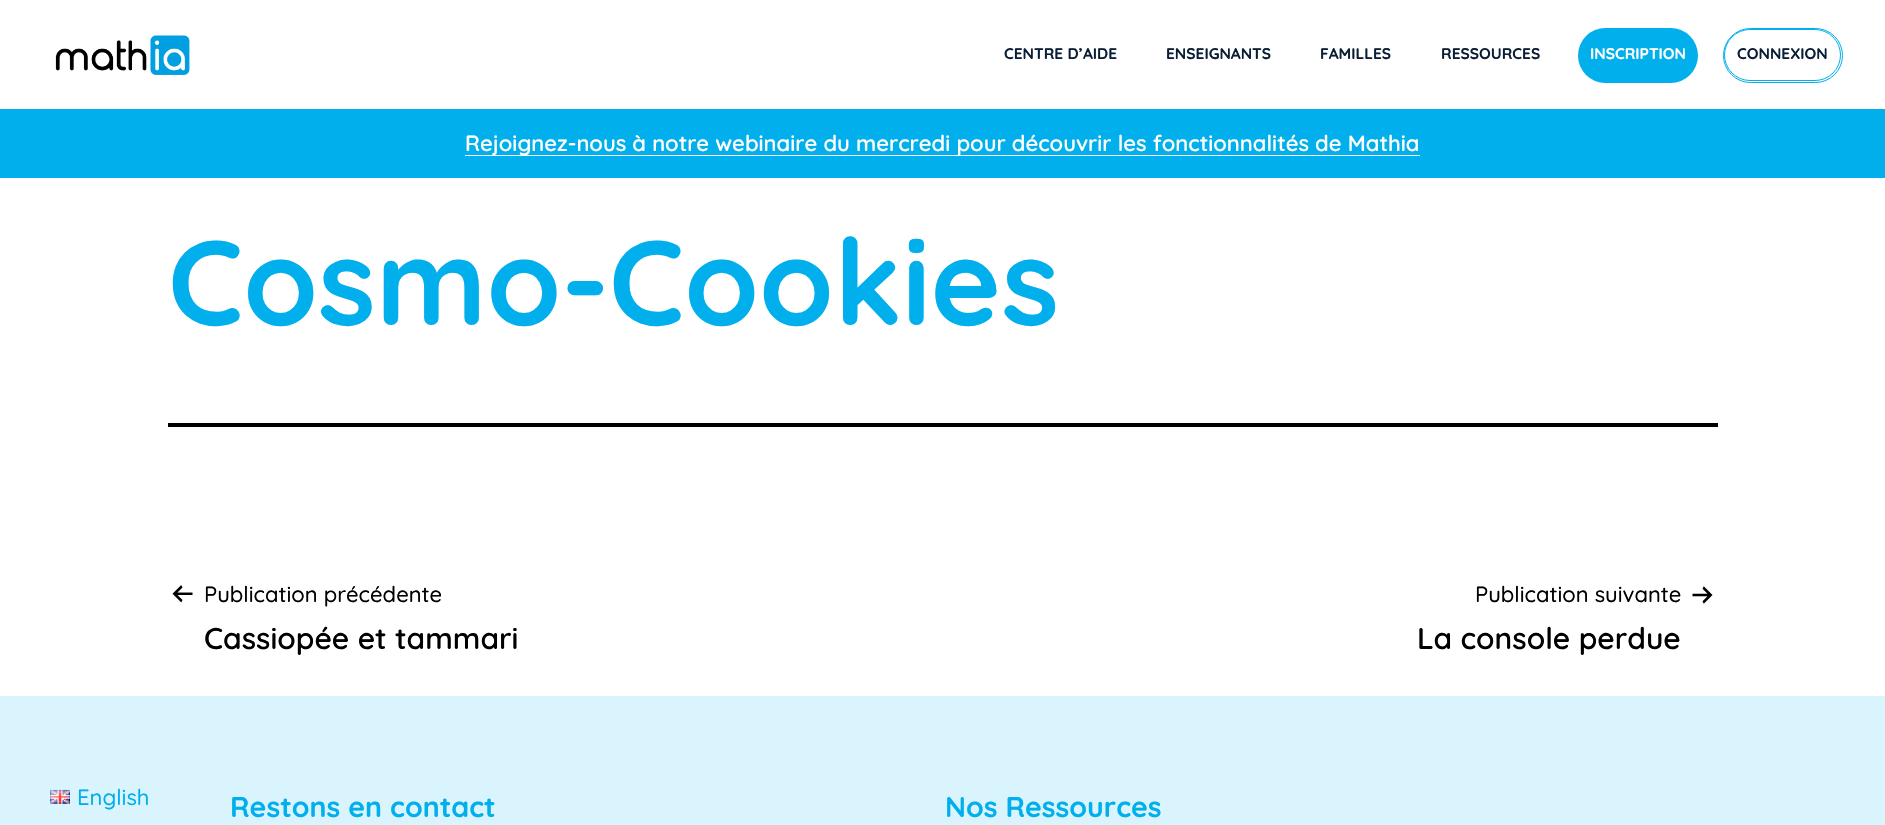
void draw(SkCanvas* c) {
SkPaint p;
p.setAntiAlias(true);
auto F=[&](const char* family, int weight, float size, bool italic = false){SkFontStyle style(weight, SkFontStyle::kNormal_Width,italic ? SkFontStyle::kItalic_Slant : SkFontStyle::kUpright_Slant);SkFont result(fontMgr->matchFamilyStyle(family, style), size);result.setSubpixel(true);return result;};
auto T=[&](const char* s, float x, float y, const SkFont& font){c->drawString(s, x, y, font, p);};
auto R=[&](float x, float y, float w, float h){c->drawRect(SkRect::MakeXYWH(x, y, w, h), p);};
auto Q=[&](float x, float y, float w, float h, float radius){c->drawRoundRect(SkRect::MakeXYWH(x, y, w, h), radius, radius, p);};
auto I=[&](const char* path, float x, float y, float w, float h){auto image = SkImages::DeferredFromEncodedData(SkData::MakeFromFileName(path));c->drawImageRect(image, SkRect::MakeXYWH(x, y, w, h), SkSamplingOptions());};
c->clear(0xffffffff);
I("1.png",55,35,135,40);
auto f1 = F("Quicksand",700,15.5);
p.setColor(0xff0a1e36);
T("CENTRE D’AIDE",1004,59,f1);
T("ENSEIGNANTS",1166,59,f1);
T("FAMILLES",1320,59,f1);
T("RESSOURCES",1441,59,f1);
p.setColor(0xff00afec);
Q(1578,28,120,55,27.5);
p.setColor(0xffffffff);
T("INSCRIPTION",1590,59,f1);
p.setStroke(true);
p.setStrokeWidth(1);
p.setColor(0xff00afec);
c->drawRoundRect(SkRect::MakeXYWH(1723.5,28.5,119,54),27,27,p);
c->drawRoundRect(SkRect::MakeXYWH(1724.5,29.5,116,51),25.5,25.5,p);
p.setStroke(false);
p.setColor(0xff0a1e36);
T("CONNEXION",1737,59,f1);
p.setColor(0xff00afec);
R(0,109,1885,69);
p.setColor(0xffffffff);
R(465,155,955,1);
auto f2 = F("Quicksand",600,22);
T("Rejoignez-nous à notre webinaire du mercredi pour découvrir les fonctionnalités de Mathia",465,151,f2);
p.setColor(0xff000000);
R(168,423,1550,4);
auto f3 = F("Quicksand",700,120);
p.setColor(0xff00afec);
T("Cosmo-Cookies",168,325,f3);
I("2.png",172,585,21,18);
auto f4 = F("Quicksand",500,22);
p.setColor(0xff000000);
T("Publication précédente",204,602,f4);
auto f5 = F("Quicksand",600,30);
T("Cassiopée et tammari",204,649,f5);
T("Publication suivante",1475,602,f4);
I("3.png",1692,586,21,18);
T("La console perdue",1417,649,f5);
p.setColor(0xffdaf4fd);
R(0,696,1885,129);
I("4.png",50,789,20,15);
p.setColor(0xff00afec);
T("English",77,805,f4);
auto f6 = F("Quicksand",700,28.5);
T("Restons en contact",230,817,f6);
T("Nos Ressources",945,817,f6);
}
